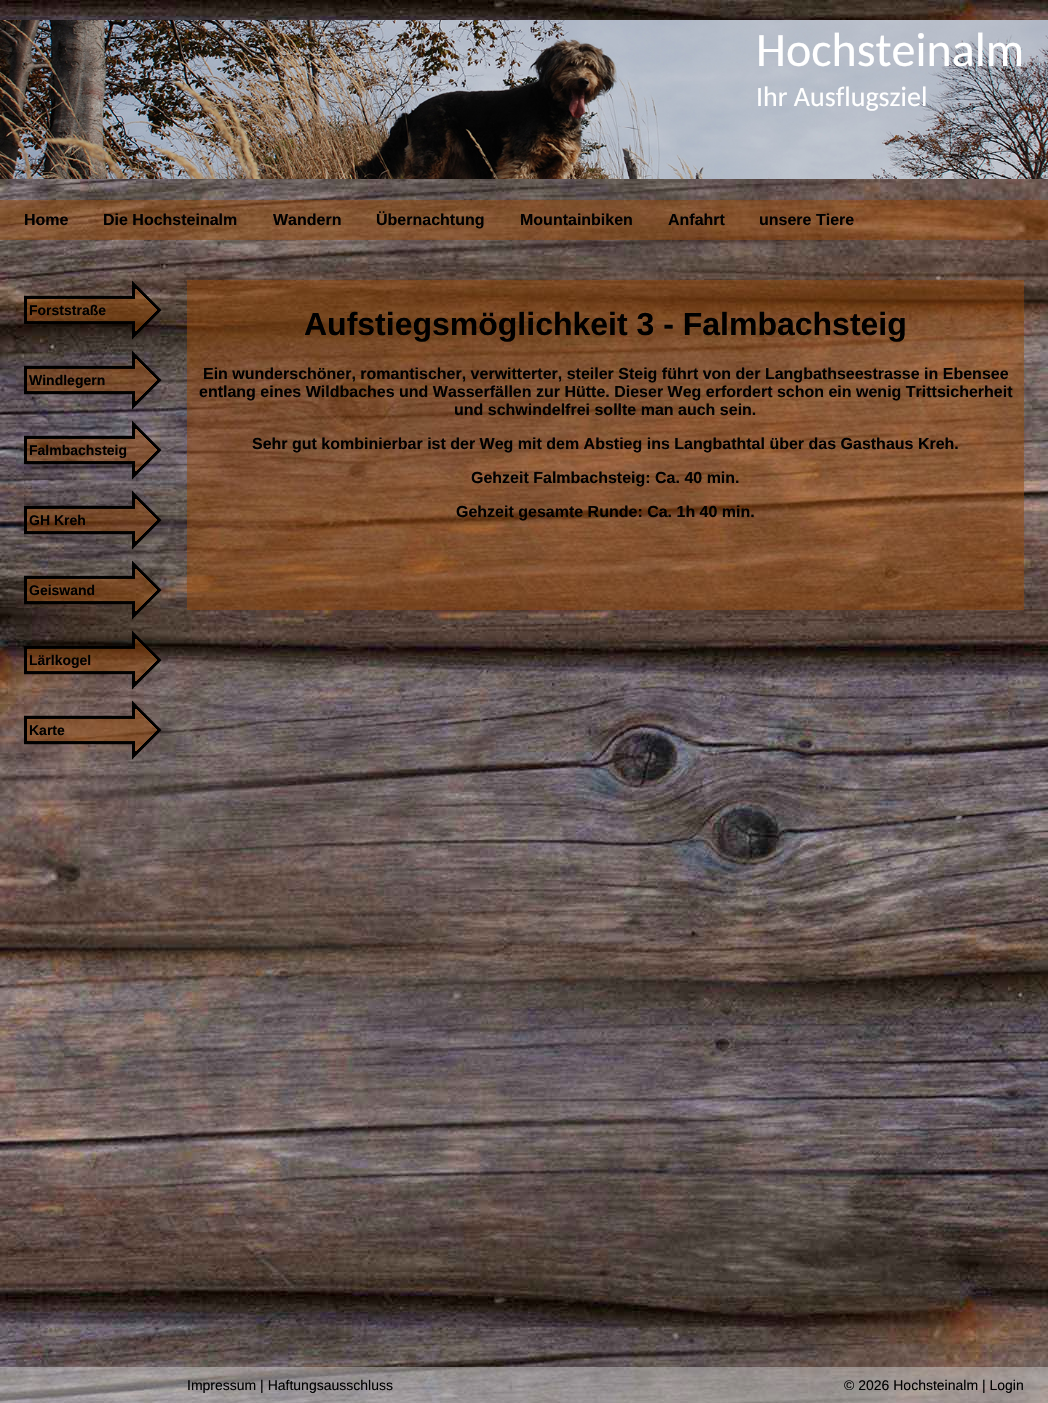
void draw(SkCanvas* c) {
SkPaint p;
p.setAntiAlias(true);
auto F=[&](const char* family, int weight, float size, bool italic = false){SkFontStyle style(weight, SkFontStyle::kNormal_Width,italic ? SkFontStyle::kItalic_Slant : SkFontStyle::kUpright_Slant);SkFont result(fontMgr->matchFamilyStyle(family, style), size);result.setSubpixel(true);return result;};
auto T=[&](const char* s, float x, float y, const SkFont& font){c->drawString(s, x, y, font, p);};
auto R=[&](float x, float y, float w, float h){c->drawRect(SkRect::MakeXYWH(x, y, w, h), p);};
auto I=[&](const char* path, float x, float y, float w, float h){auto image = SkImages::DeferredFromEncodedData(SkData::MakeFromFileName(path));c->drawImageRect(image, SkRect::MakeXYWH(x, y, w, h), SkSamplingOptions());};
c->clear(0xffffffff);
I("1.png",0,0,1048,1403);
I("2.png",0,20,1048,159);
auto f1 = F("Carlito",400,48);
p.setColor(0xffffffff);
T("Hochsteinalm",756,66,f1);
auto f2 = F("Carlito",400,28);
T("Ihr Ausflugsziel",756,106,f2);
p.setColor(0x80994806);
R(0,200,1048,40);
auto f3 = F("Liberation Sans",700,16);
p.setColor(0xff000000);
T("Home",24,225,f3);
T("Die Hochsteinalm",103,225,f3);
T("Wandern",273,225,f3);
T("Übernachtung",376,225,f3);
T("Mountainbiken",520,225,f3);
T("Anfahrt",668,225,f3);
T("unsere Tiere",759,225,f3);
I("3.png",24,280,138,60);
auto f4 = F("Liberation Sans",700,14);
T("Forststraße",29,315,f4);
I("4.png",24,350,138,60);
T("Windlegern",29,385,f4);
I("5.png",24,420,138,60);
T("Falmbachsteig",29,455,f4);
I("6.png",24,490,138,60);
T("GH Kreh",29,525,f4);
I("7.png",24,560,138,60);
T("Geiswand",29,595,f4);
I("8.png",24,630,138,60);
T("Lärlkogel",29,665,f4);
I("9.png",24,700,138,60);
T("Karte",29,735,f4);
p.setColor(0x80994806);
R(187,280,837,330);
auto f5 = F("Liberation Sans",700,32);
p.setColor(0xff000000);
T("Aufstiegsmöglichkeit 3 - Falmbachsteig",304,335,f5);
T("Ein wunderschöner, romantischer, verwitterter, steiler Steig führt von der Langbathseestrasse in Ebensee",203,379,f3);
T("entlang eines Wildbaches und Wasserfällen zur Hütte. Dieser Weg erfordert schon ein wenig Trittsicherheit",199,397,f3);
T("und schwindelfrei sollte man auch sein.",454,415,f3);
T("Sehr gut kombinierbar ist der Weg mit dem Abstieg ins Langbathtal über das Gasthaus Kreh.",252,449,f3);
T("Gehzeit Falmbachsteig: Ca. 40 min.",471,483,f3);
T("Gehzeit gesamte Runde: Ca. 1h 40 min.",456,517,f3);
p.setColor(0x80cdcdcd);
R(0,1367,1048,36);
auto f6 = F("Liberation Sans",400,14);
p.setColor(0xff000000);
T("Impressum | Haftungsausschluss",187,1390,f6);
T("© 2026 Hochsteinalm | Login",844,1390,f6);
}
